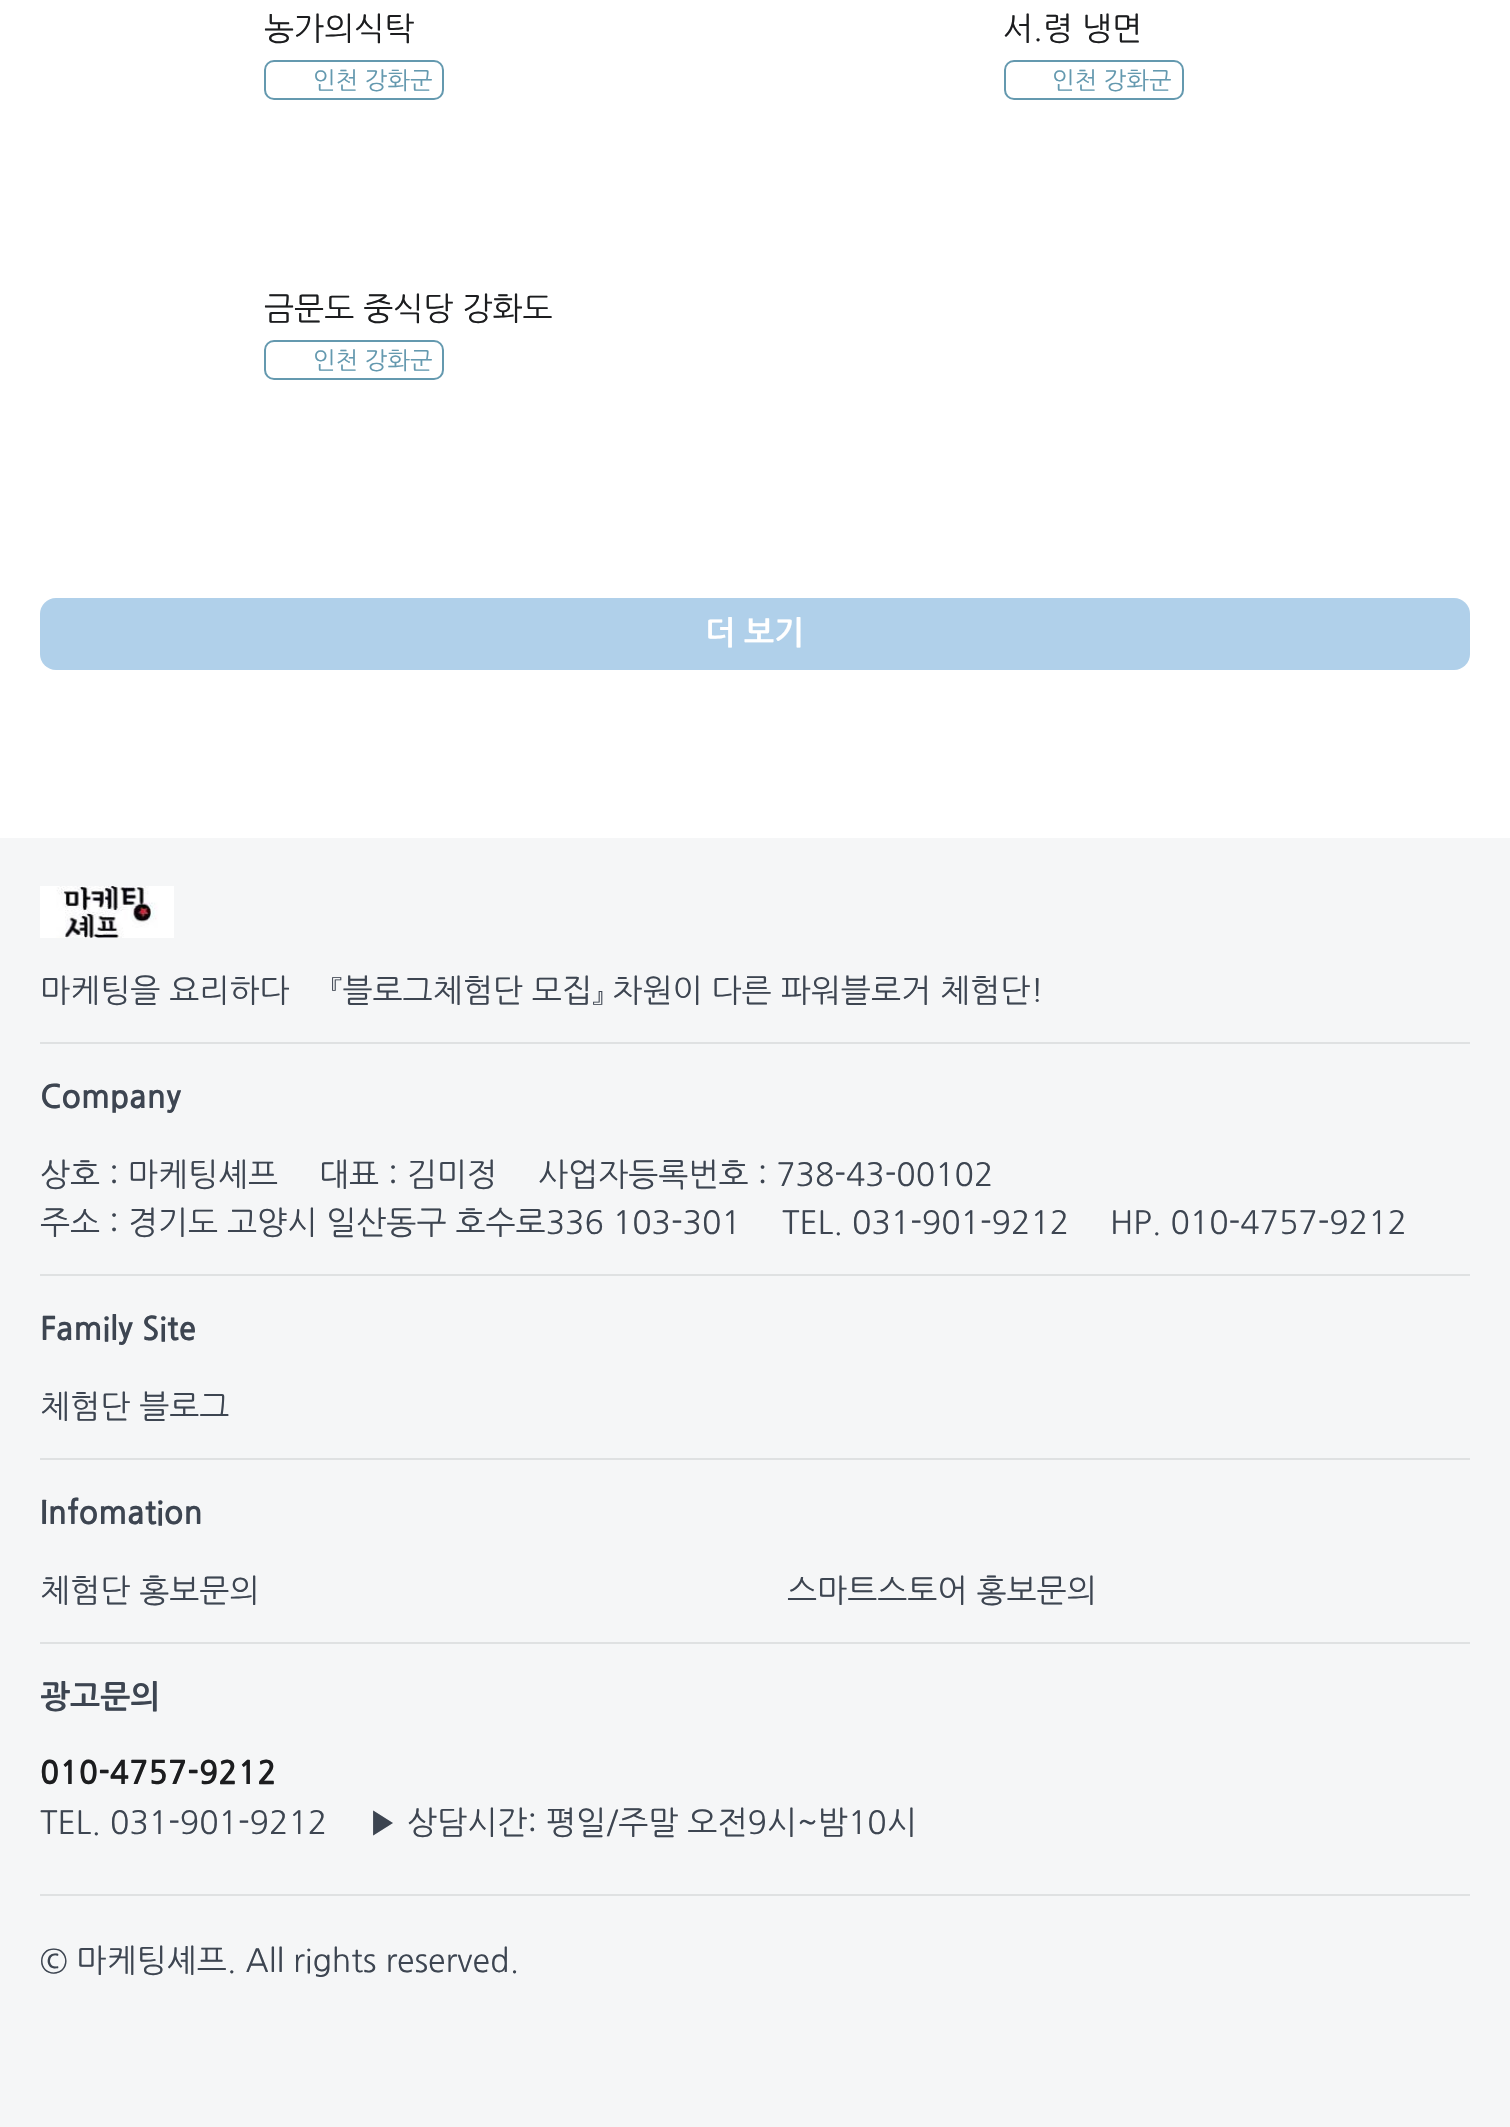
void draw(SkCanvas* c) {
SkPaint p;
p.setAntiAlias(true);
auto F=[&](const char* family, int weight, float size, bool italic = false){SkFontStyle style(weight, SkFontStyle::kNormal_Width,italic ? SkFontStyle::kItalic_Slant : SkFontStyle::kUpright_Slant);SkFont result(fontMgr->matchFamilyStyle(family, style), size);result.setSubpixel(true);return result;};
auto T=[&](const char* s, float x, float y, const SkFont& font){c->drawString(s, x, y, font, p);};
auto R=[&](float x, float y, float w, float h){c->drawRect(SkRect::MakeXYWH(x, y, w, h), p);};
auto Q=[&](float x, float y, float w, float h, float radius){c->drawRoundRect(SkRect::MakeXYWH(x, y, w, h), radius, radius, p);};
auto I=[&](const char* path, float x, float y, float w, float h){auto image = SkImages::DeferredFromEncodedData(SkData::MakeFromFileName(path));c->drawImageRect(image, SkRect::MakeXYWH(x, y, w, h), SkSamplingOptions());};
c->clear(0xffffffff);
auto f1 = F("NanumGothic",400,32);
p.setColor(0xff1c1d1f);
T("농가의식탁",264,40,f1);
p.setStroke(true);
p.setStrokeWidth(2);
p.setColor(0xff6499af);
c->drawRoundRect(SkRect::MakeXYWH(265,61,178,38),9,9,p);
auto f2 = F("NanumGothic",400,24);
p.setStroke(false);
T("인천 강화군",313,89,f2);
p.setColor(0xff1c1d1f);
T("서.령 냉면",1003,40,f1);
p.setStroke(true);
p.setColor(0xff6499af);
c->drawRoundRect(SkRect::MakeXYWH(1005,61,178,38),9,9,p);
p.setStroke(false);
T("인천 강화군",1052,89,f2);
p.setColor(0xff1c1d1f);
T("금문도 중식당 강화도",264,320,f1);
p.setStroke(true);
p.setColor(0xff6499af);
c->drawRoundRect(SkRect::MakeXYWH(265,341,178,38),9,9,p);
p.setStroke(false);
T("인천 강화군",313,369,f2);
p.setColor(0xffb0d0ea);
Q(40,598,1430,72,16);
auto f3 = F("NanumGothic",700,32);
p.setColor(0xffffffff);
T("더 보기",705,644,f3);
p.setColor(0xfff5f6f7);
R(0,838,1510,1289);
I("1.png",40,886,134,52);
p.setColor(0xff3d4551);
T("마케팅을 요리하다",40,1002,f1);
T("『블로그체험단 모집』 차원이 다른 파워블로거 체험단!",331,1002,f1);
p.setColor(0xffdfe1e2);
R(40,1042,1430,2);
p.setColor(0xff3d4551);
T("Company",40,1108,f3);
T("상호 : 마케팅셰프",40,1186,f1);
T("대표 : 김미정",319,1186,f1);
T("사업자등록번호 : 738-43-00102",538,1186,f1);
T("주소 : 경기도 고양시 일산동구 호수로336 103-301",40,1234,f1);
T("TEL. 031-901-9212",782,1234,f1);
T("HP. 010-4757-9212",1110,1234,f1);
p.setColor(0xffdfe1e2);
R(40,1274,1430,2);
p.setColor(0xff3d4551);
T("Family Site",40,1340,f3);
T("체험단 블로그",40,1418,f1);
p.setColor(0xffdfe1e2);
R(40,1458,1430,2);
p.setColor(0xff3d4551);
T("Infomation",40,1524,f3);
T("체험단 홍보문의",40,1602,f1);
T("스마트스토어 홍보문의",787,1602,f1);
p.setColor(0xffdfe1e2);
R(40,1642,1430,2);
p.setColor(0xff3d4551);
T("광고문의",40,1708,f3);
p.setColor(0xff1c1d1f);
T("010-4757-9212",40,1784,f3);
p.setColor(0xff3d4551);
T("TEL. 031-901-9212",40,1834,f1);
T("▶ 상담시간: 평일/주말 오전9시~밤10시",368,1834,f1);
p.setColor(0xffdfe1e2);
R(40,1894,1430,2);
p.setColor(0xff3d4551);
T("© 마케팅셰프. All rights reserved.",40,1972,f1);
}
